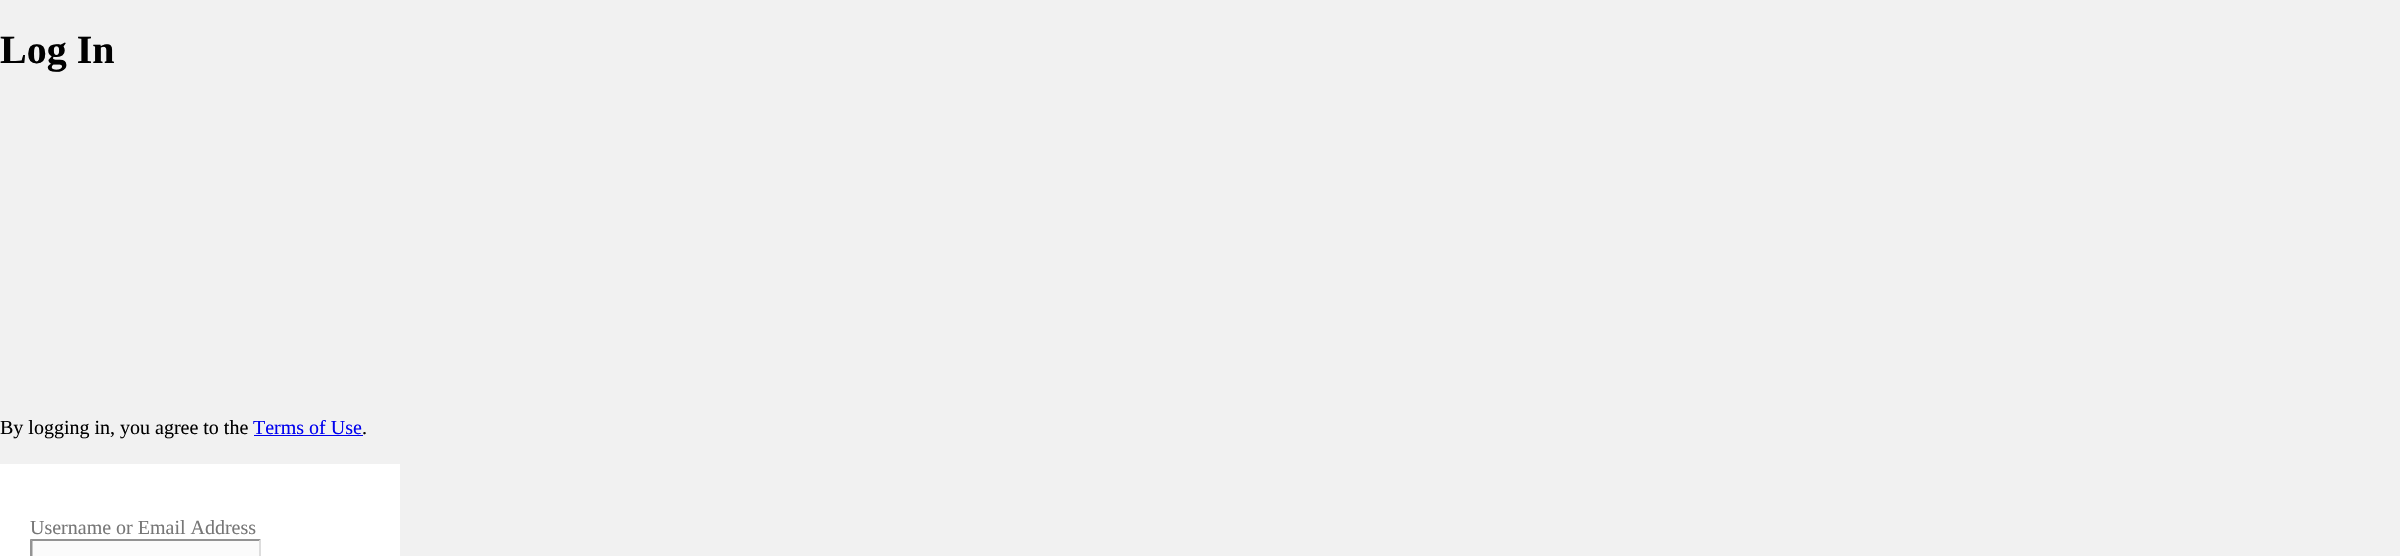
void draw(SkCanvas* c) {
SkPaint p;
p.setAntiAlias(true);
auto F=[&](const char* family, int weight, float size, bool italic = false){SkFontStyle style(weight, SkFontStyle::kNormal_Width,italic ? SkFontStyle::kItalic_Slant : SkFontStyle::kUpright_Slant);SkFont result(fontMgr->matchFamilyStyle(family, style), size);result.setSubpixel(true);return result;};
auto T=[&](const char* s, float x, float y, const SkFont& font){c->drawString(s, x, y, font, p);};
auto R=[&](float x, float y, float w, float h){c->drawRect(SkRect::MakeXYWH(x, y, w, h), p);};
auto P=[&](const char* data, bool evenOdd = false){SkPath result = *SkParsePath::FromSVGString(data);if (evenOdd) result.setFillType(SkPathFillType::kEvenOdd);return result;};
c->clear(0xfff1f1f1);
auto f1 = F("Liberation Serif",700,40);
p.setColor(0xff000000);
T("Log In",0,63,f1);
auto f2 = F("Liberation Serif",400,20);
T("By logging in, you agree to the",0,434,f2);
p.setColor(0xff0000ee);
T("Terms of Use",253,434,f2);
R(254,435,109,1);
p.setColor(0xff000000);
T(".",362,434,f2);
p.setColor(0xffffffff);
R(0,464,400,92);
p.setColor(0xff777777);
T("Username or Email Address",30,534,f2);
p.setColor(0xfffbfbfb);
R(30,539,231,17);
p.setColor(0xff939393);
c->drawPath(P("M30 539h231l-2 2h-227z"),p);
p.setColor(0xffdddddd);
c->drawPath(P("M261 539v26l-2-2.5v-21.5z"),p);
p.setColor(0xff939393);
c->drawPath(P("M30 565v-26l2.5 2v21.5z"),p);
}
